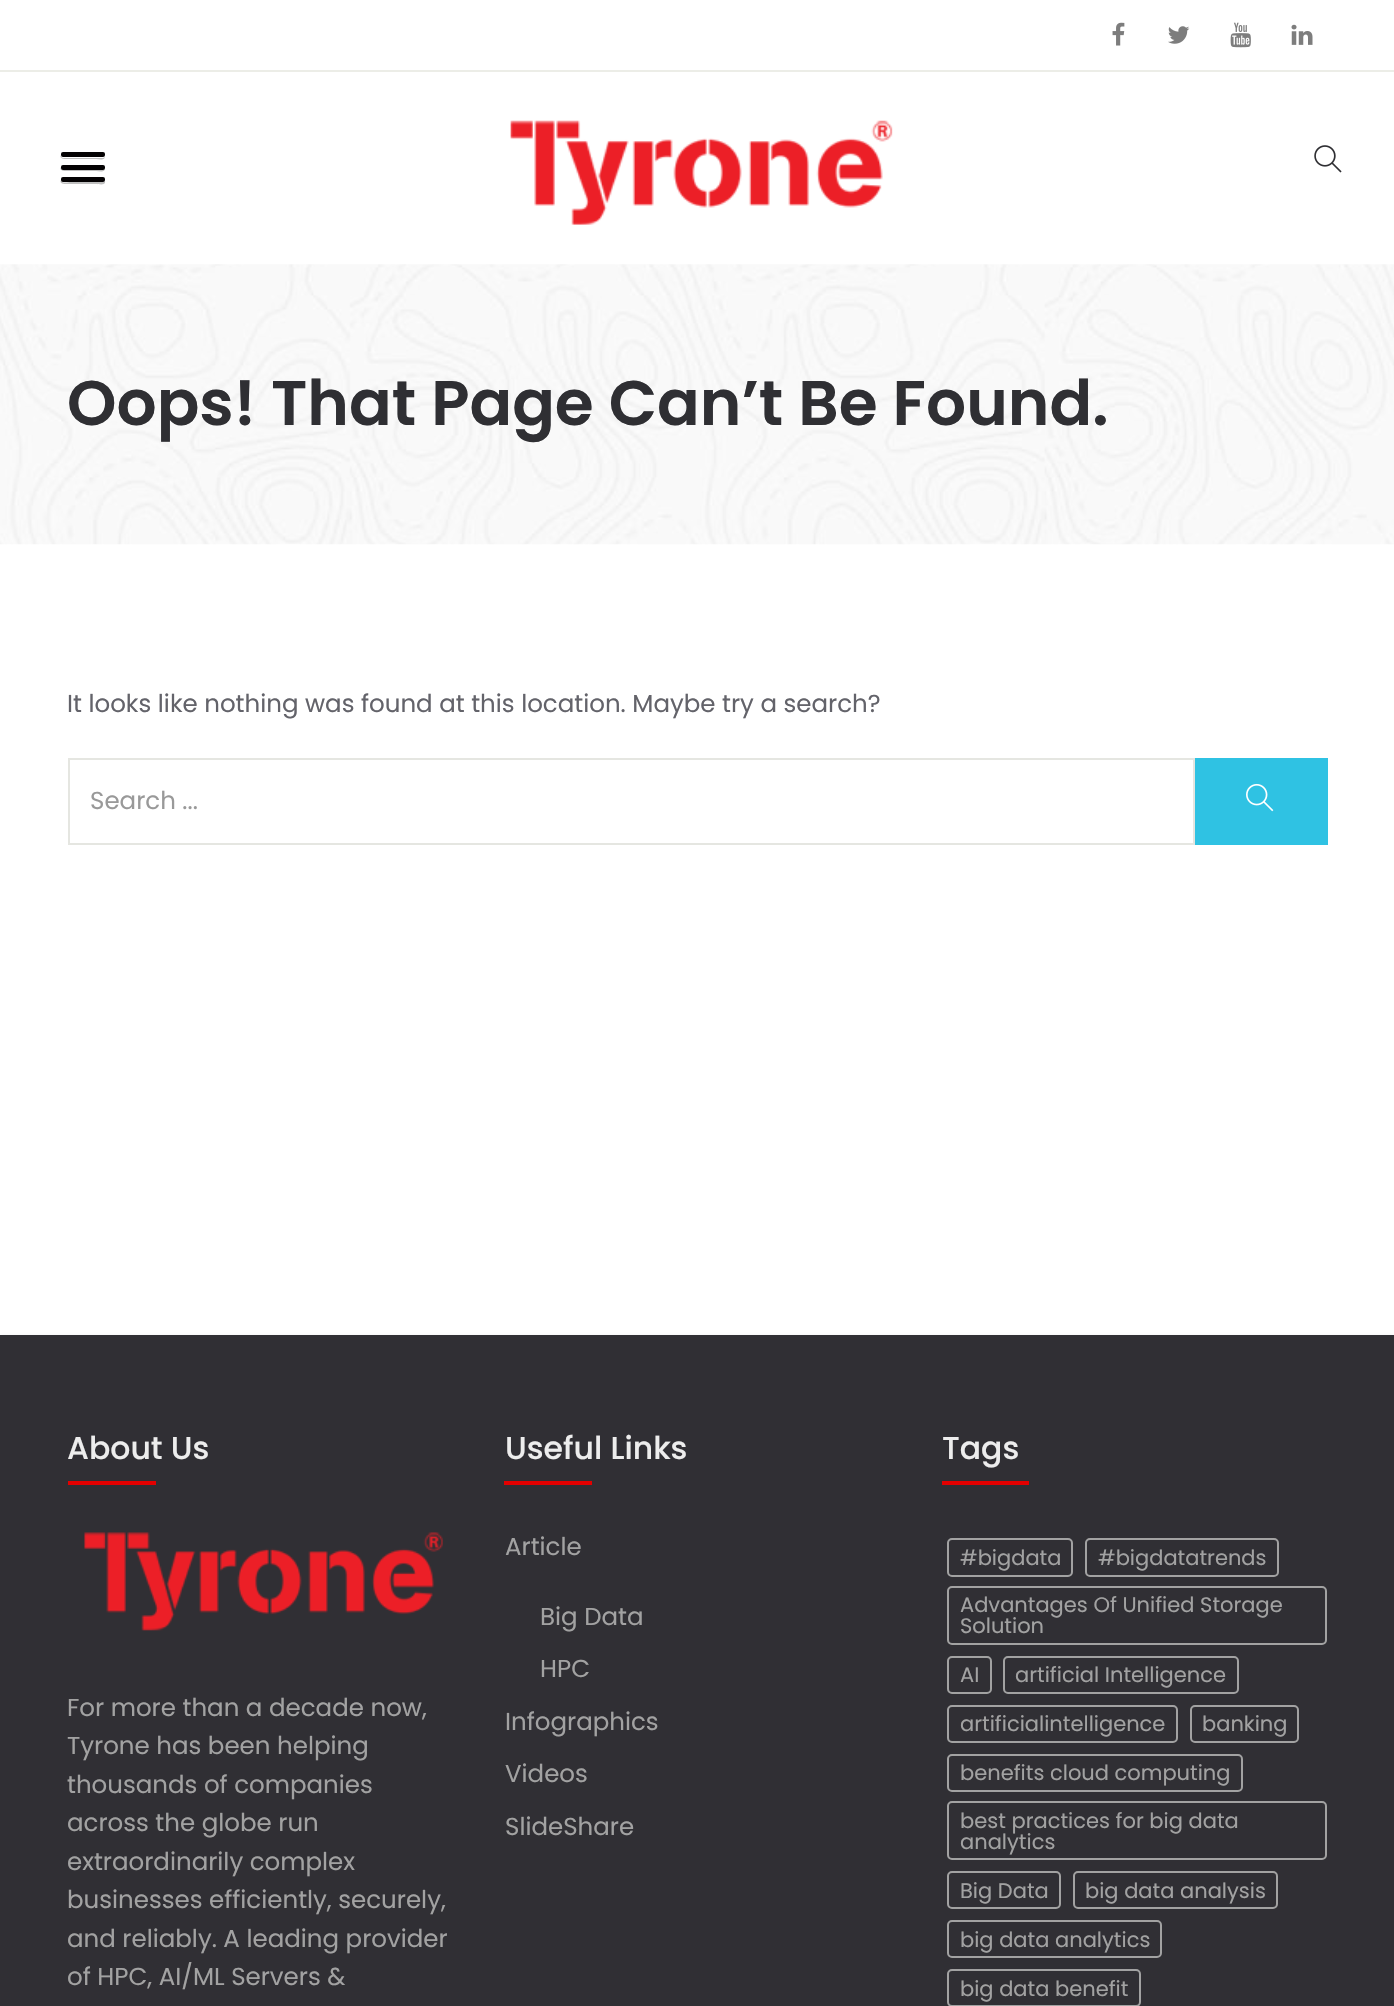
void draw(SkCanvas* c) {
SkPaint p;
p.setAntiAlias(true);
auto F=[&](const char* family, int weight, float size, bool italic = false){SkFontStyle style(weight, SkFontStyle::kNormal_Width,italic ? SkFontStyle::kItalic_Slant : SkFontStyle::kUpright_Slant);SkFont result(fontMgr->matchFamilyStyle(family, style), size);result.setSubpixel(true);return result;};
auto T=[&](const char* s, float x, float y, const SkFont& font){c->drawString(s, x, y, font, p);};
auto R=[&](float x, float y, float w, float h){c->drawRect(SkRect::MakeXYWH(x, y, w, h), p);};
auto Q=[&](float x, float y, float w, float h, float radius){c->drawRoundRect(SkRect::MakeXYWH(x, y, w, h), radius, radius, p);};
auto I=[&](const char* path, float x, float y, float w, float h){auto image = SkImages::DeferredFromEncodedData(SkData::MakeFromFileName(path));c->drawImageRect(image, SkRect::MakeXYWH(x, y, w, h), SkSamplingOptions());};
auto P=[&](const char* data, bool evenOdd = false){SkPath result = *SkParsePath::FromSVGString(data);if (evenOdd) result.setFillType(SkPathFillType::kEvenOdd);return result;};
c->clear(0xffffffff);
p.setColor(0xffecede7);
R(0,70,1394,2);
I("1.png",1112,22,13,24);
I("2.png",1168,26,22,18);
I("3.png",1230,22,21,26);
I("4.png",1291,24,22,21);
p.setColor(0xffbfbfbf);
c->drawPath(P("M61 155c-3 5 8 4 9 4h26c4 0 9 2 9-3c0 1-1 2-2 2h-40c-1 0-2-1-2-2z"),p);
p.setColor(0xff040203);
Q(61,152,44,5,2);
p.setColor(0xffbfbfbf);
c->drawPath(P("M61 167c-3 5 8 4 9 4h26c4 0 9 2 9-3c0 1-1 2-2 2h-40c-1 0-2-1-2-2z"),p);
p.setColor(0xff040203);
Q(61,165,44,5,2);
p.setColor(0xffbfbfbf);
c->drawPath(P("M61 180c-3 5 8 4 9 4h26c3 0 10 2 9-3l-1 1h-34c-1 0-9 2-9-2z"),p);
p.setColor(0xff040203);
Q(61,177,44,5,2);
I("5.png",510,120,383,105);
I("6.png",1314,145,28,28);
I("7.png",0,264,1394,281);
auto f1 = F("Poppins",600,63);
p.setColor(0xff2f2f33);
T("Oops! That Page Can’t Be Found.",67,425,f1);
auto f2 = F("Poppins",400,24.5);
p.setColor(0xff63636a);
T("It looks like nothing was found at this location. Maybe try a search?",67,712,f2);
p.setStroke(true);
p.setStrokeWidth(2);
p.setColor(0xffe5e6e1);
c->drawRect(SkRect::MakeXYWH(69,759,1125,85),p);
p.setStroke(false);
p.setColor(0xff999999);
T("Search ...",90,809,f2);
p.setColor(0xff2fc2e3);
R(1195,758,133,87);
I("8.png",1246,783,28,29);
p.setColor(0x21000000);
p.setMaskFilter(SkMaskFilter::MakeBlur(kNormal_SkBlurStyle, 2.5));
c->drawRect(SkRect::MakeXYWH(0,1337,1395,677),p);
p.setMaskFilter(nullptr);
p.setColor(0xff302f34);
R(0,1335,1394,671);
auto f3 = F("Poppins",500,31.5);
p.setColor(0xffededed);
T("About Us",67,1459,f3);
p.setColor(0xffe30000);
R(68,1481,88,4);
I("9.png",84,1532,359,99);
p.setColor(0xffa2a2a2);
T("For more than a decade now,",67,1716,f2);
T("Tyrone has been helping",67,1754,f2);
T("thousands of companies",67,1793,f2);
T("across the globe run",67,1831,f2);
T("extraordinarily complex",67,1870,f2);
T("businesses efficiently, securely,",67,1908,f2);
T("and reliably. A leading provider",67,1947,f2);
T("of HPC, AI/ML Servers &",67,1985,f2);
p.setColor(0xffededed);
T("Useful Links",505,1459,f3);
p.setColor(0xffe30000);
R(504,1481,88,4);
p.setColor(0xffa2a2a2);
T("Article",505,1555,f2);
T("Big Data",540,1625,f2);
T("HPC",540,1677,f2);
T("Infographics",505,1730,f2);
T("Videos",505,1782,f2);
T("SlideShare",505,1835,f2);
p.setColor(0xffededed);
T("Tags",942,1459,f3);
p.setColor(0xffe30000);
R(942,1481,87,4);
p.setStroke(true);
p.setColor(0xffa2a2a2);
c->drawRoundRect(SkRect::MakeXYWH(948,1539,124,37),4,4,p);
auto f4 = F("Poppins",400,21);
p.setStroke(false);
T("#bigdata",960,1565,f4);
p.setStroke(true);
c->drawRoundRect(SkRect::MakeXYWH(1086,1539,192,37),4,4,p);
p.setStroke(false);
T("#bigdatatrends",1098,1565,f4);
p.setStroke(true);
c->drawRoundRect(SkRect::MakeXYWH(948,1587,378,57),4,4,p);
p.setStroke(false);
T("Advantages Of Unified Storage",960,1612,f4);
T("Solution",960,1633,f4);
p.setStroke(true);
c->drawRoundRect(SkRect::MakeXYWH(948,1657,43,36),4,4,p);
p.setStroke(false);
T("AI",960,1682,f4);
p.setStroke(true);
c->drawRoundRect(SkRect::MakeXYWH(1004,1657,234,36),4,4,p);
p.setStroke(false);
T("artificial Intelligence",1015,1682,f4);
p.setStroke(true);
c->drawRoundRect(SkRect::MakeXYWH(948,1706,229,36),4,4,p);
p.setStroke(false);
T("artificialintelligence",960,1731,f4);
p.setStroke(true);
c->drawRoundRect(SkRect::MakeXYWH(1191,1706,107,36),4,4,p);
p.setStroke(false);
T("banking",1202,1731,f4);
p.setStroke(true);
c->drawRoundRect(SkRect::MakeXYWH(948,1755,294,36),4,4,p);
p.setStroke(false);
T("benefits cloud computing",960,1780,f4);
p.setStroke(true);
c->drawRoundRect(SkRect::MakeXYWH(948,1802,378,57),4,4,p);
p.setStroke(false);
T("best practices for big data",960,1828,f4);
T("analytics",960,1849,f4);
p.setStroke(true);
c->drawRoundRect(SkRect::MakeXYWH(948,1872,112,36),4,4,p);
p.setStroke(false);
T("Big Data",960,1898,f4);
p.setStroke(true);
c->drawRoundRect(SkRect::MakeXYWH(1074,1872,203,36),4,4,p);
p.setStroke(false);
T("big data analysis",1085,1898,f4);
p.setStroke(true);
c->drawRoundRect(SkRect::MakeXYWH(948,1921,213,36),4,4,p);
p.setStroke(false);
T("big data analytics",960,1947,f4);
p.setStroke(true);
c->drawRoundRect(SkRect::MakeXYWH(948,1970,192,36),4,4,p);
p.setStroke(false);
T("big data benefit",960,1996,f4);
}
